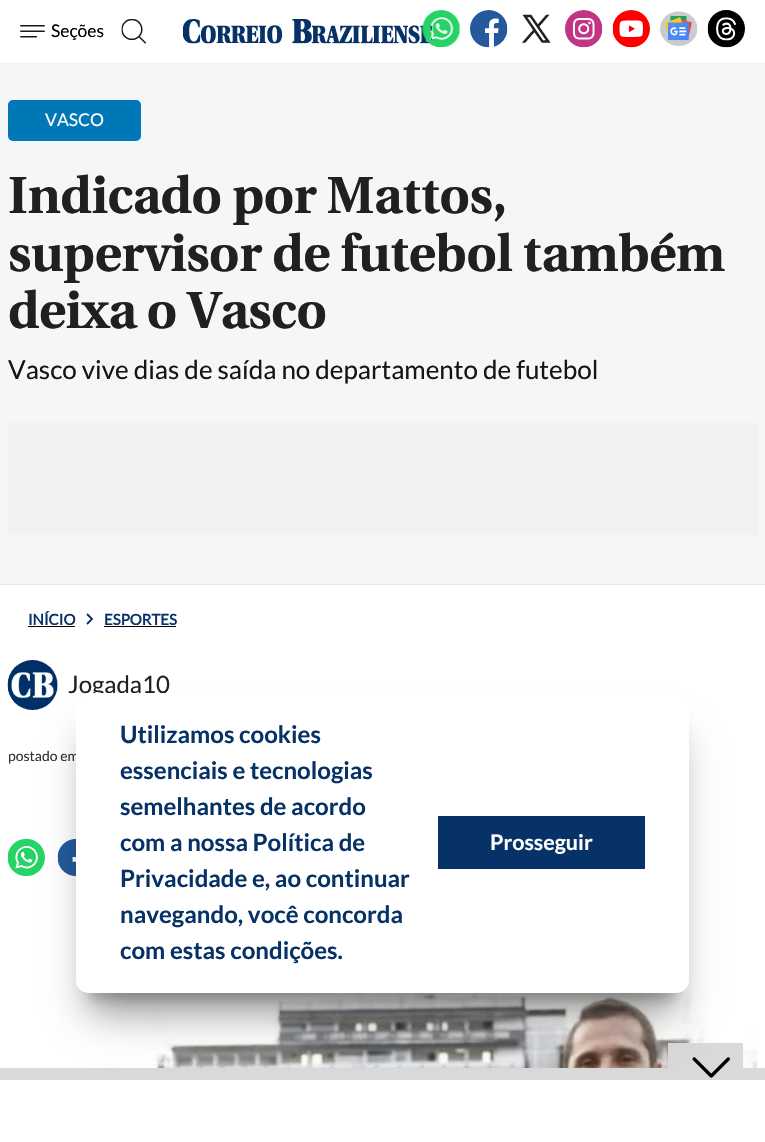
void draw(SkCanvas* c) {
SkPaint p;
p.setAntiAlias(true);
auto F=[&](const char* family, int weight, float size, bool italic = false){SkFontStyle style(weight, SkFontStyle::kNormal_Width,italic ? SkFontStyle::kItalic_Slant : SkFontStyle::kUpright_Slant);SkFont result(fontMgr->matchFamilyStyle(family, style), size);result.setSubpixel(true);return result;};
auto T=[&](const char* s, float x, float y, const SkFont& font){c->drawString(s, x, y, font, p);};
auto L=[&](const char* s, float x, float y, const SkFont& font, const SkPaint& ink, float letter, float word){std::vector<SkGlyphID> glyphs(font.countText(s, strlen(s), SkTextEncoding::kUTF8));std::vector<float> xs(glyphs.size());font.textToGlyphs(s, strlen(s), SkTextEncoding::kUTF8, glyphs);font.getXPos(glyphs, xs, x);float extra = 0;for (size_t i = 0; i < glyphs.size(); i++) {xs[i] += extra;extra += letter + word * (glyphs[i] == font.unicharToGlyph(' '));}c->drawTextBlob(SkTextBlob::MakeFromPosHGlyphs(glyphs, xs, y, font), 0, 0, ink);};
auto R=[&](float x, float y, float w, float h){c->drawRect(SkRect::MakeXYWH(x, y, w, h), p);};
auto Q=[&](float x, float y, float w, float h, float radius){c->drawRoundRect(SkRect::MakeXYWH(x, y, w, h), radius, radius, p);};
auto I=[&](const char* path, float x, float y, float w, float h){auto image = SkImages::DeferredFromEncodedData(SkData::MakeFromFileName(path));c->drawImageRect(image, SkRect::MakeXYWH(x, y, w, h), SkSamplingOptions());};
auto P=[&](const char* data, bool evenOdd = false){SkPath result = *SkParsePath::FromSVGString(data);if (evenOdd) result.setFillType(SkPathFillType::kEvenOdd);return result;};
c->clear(0xffffffff);
p.setColor(0xfff1f1f1);
R(0,63,765,1);
I("1.png",20,25,25,13);
auto f1 = F("Lato",400,17.5);
p.setColor(0xff000000);
T("Seções",51,37,f1);
I("2.png",121,19,25,25);
I("3.png",182,19,251,25);
I("4.png",422,10,39,38);
I("5.png",470,10,38,38);
I("6.png",522,14,29,29);
I("7.png",565,10,38,38);
I("8.png",612,10,38,38);
I("9.png",660,11,38,35);
I("10.png",707,10,38,38);
p.setColor(0xfff5f6f8);
R(0,64,765,520);
p.setColor(0xffe2e6ec);
R(0,584,765,1);
p.setColor(0xff0077b6);
Q(8,100,133,41,5);
p.setColor(0xffffffff);
T("VASCO",45,126,f1);
auto f2 = F("Utopia",700,52);
p.setColor(0xff202020);
L("Indicado por Mattos,",8,213,f2,p,-.4,0);
L("supervisor de futebol também",8,271,f2,p,-.4,0);
L("deixa o Vasco",8,328,f2,p,-.4,0);
auto f3 = F("Lato",400,26);
p.setColor(0xff151515);
T("Vasco vive dias de saída no departamento de futebol",8,379,f3);
p.setColor(0xfff1f1f1);
R(8,423,750,112);
auto f4 = F("Lato",700,15);
p.setColor(0xff073267);
T("INÍCIO",28,625,f4);
p.setColor(0xff000000);
R(28,626,47,1);
p.setStroke(true);
p.setStrokeWidth(1.9);
p.setColor(0xff073267);
c->drawPath(P("M87 624l5-5l-5-5"),p);
p.setStroke(false);
T("ESPORTES",104,625,f4);
p.setColor(0xff000000);
R(104,626,72,1);
p.setColor(0xffcccccc);
c->drawCircle(33,685,25,p);
I("11.png",7,660,51,50);
auto f5 = F("Lato",400,24);
p.setColor(0xff202020);
T("Jogada10",68,693,f5);
auto f6 = F("Lato",400,14);
p.setColor(0xff333333);
T("postado em",8,761,f6);
I("12.png",7,839,38,37);
I("13.png",57,839,19,37);
I("14.png",7,977,751,91);
p.setColor(0x33000000);
p.setMaskFilter(SkMaskFilter::MakeBlur(kNormal_SkBlurStyle, 6));
c->drawRect(SkRect::MakeXYWH(89,725,587,275),p);
p.setMaskFilter(nullptr);
p.setColor(0xffd9d9d9);
R(0,1068,765,12);
R(668,1043,75,25);
I("15.png",692,1057,38,21);
p.setColor(0x66000000);
p.setMaskFilter(SkMaskFilter::MakeBlur(kNormal_SkBlurStyle, 19));
c->drawRect(SkRect::MakeXYWH(89,738,587,275),p);
p.setMaskFilter(nullptr);
p.setColor(0xffffffff);
Q(76,693,613,300,13);
auto f7 = F("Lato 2",700,24);
p.setColor(0xff073267);
T("Utilizamos cookies",120,743,f7);
T("essenciais e tecnologias",120,779,f7);
T("semelhantes de acordo",120,815,f7);
T("com a nossa Política de",120,851,f7);
T("Privacidade e, ao continuar",120,887,f7);
T("navegando, você concorda",120,923,f7);
T("com estas condições.",120,959,f7);
R(438,816,207,53);
auto f8 = F("Lato 2",700,21.5);
p.setColor(0xffffffff);
T("Prosseguir",490,850,f8);
}
